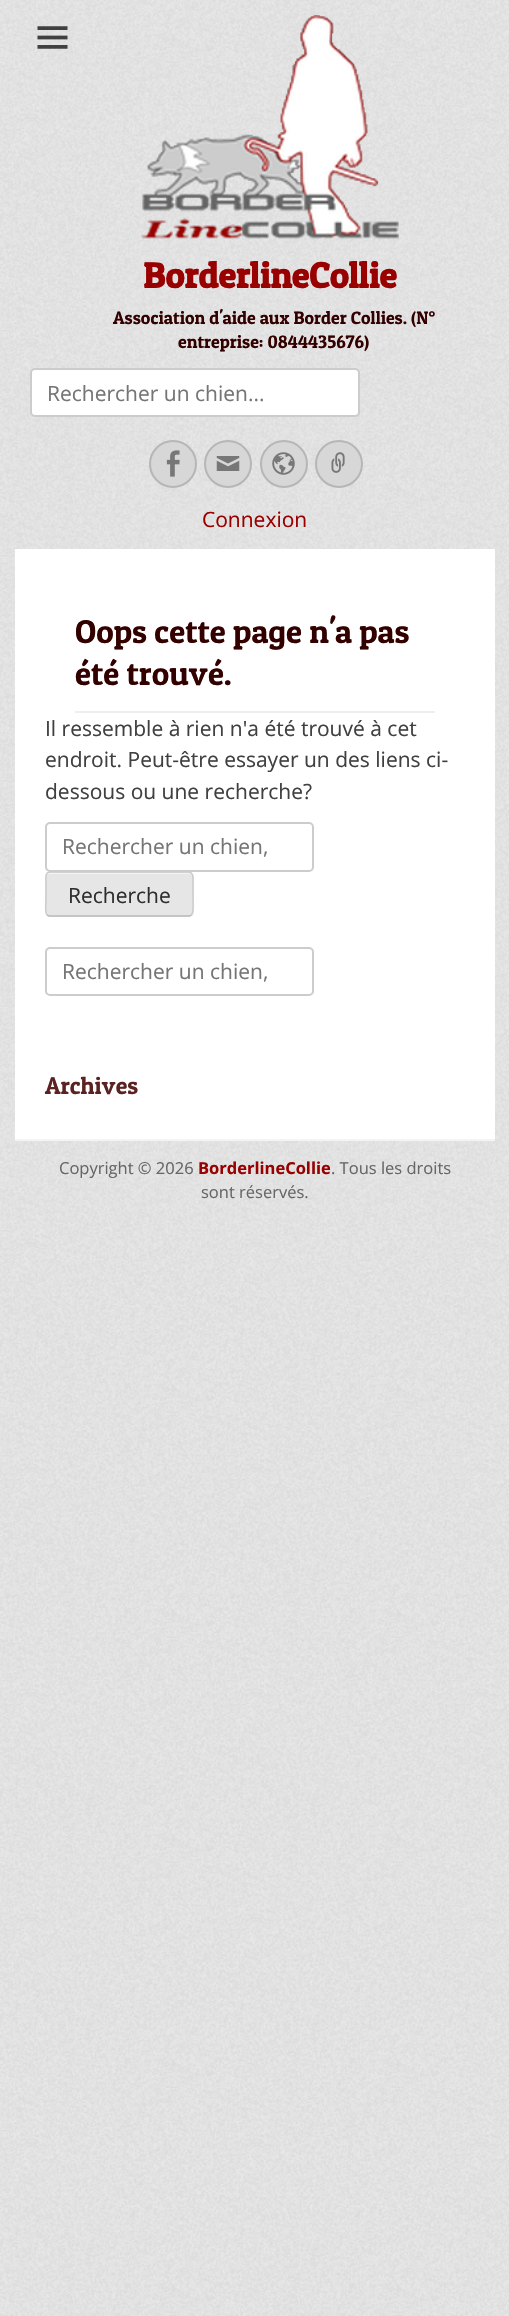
void draw(SkCanvas* c) {
SkPaint p;
p.setAntiAlias(true);
auto F=[&](const char* family, int weight, float size, bool italic = false){SkFontStyle style(weight, SkFontStyle::kNormal_Width,italic ? SkFontStyle::kItalic_Slant : SkFontStyle::kUpright_Slant);SkFont result(fontMgr->matchFamilyStyle(family, style), size);result.setSubpixel(true);return result;};
auto T=[&](const char* s, float x, float y, const SkFont& font){c->drawString(s, x, y, font, p);};
auto R=[&](float x, float y, float w, float h){c->drawRect(SkRect::MakeXYWH(x, y, w, h), p);};
auto Q=[&](float x, float y, float w, float h, float radius){c->drawRoundRect(SkRect::MakeXYWH(x, y, w, h), radius, radius, p);};
auto I=[&](const char* path, float x, float y, float w, float h){auto image = SkImages::DeferredFromEncodedData(SkData::MakeFromFileName(path));c->drawImageRect(image, SkRect::MakeXYWH(x, y, w, h), SkSamplingOptions());};
auto P=[&](const char* data, bool evenOdd = false){SkPath result = *SkParsePath::FromSVGString(data);if (evenOdd) result.setFillType(SkPathFillType::kEvenOdd);return result;};
c->clear(0xffffffff);
I("1.png",0,0,509,2316);
I("2.png",37,26,31,23);
I("3.png",141,15,258,225);
auto f1 = F("Patua One",700,36);
p.setColor(0xff990000);
T("BorderlineCollie",143,288,f1);
auto f2 = F("Patua One",400,18);
p.setColor(0xff330000);
T("Association d'aide aux Border Collies. (N°",113,324,f2);
T("entreprise: 0844435676)",178,348,f2);
p.setColor(0xffffffff);
c->drawRoundRect(SkRect::MakeXYWH(31,369,328,47),4,4,p);
p.setStroke(true);
p.setStrokeWidth(2);
p.setColor(0xffcccccc);
c->drawRoundRect(SkRect::MakeXYWH(31,369,328,47),4,4,p);
auto f3 = F("Open Sans",400,21);
p.setStroke(false);
p.setColor(0xff757575);
T("Rechercher un chien...",47,401,f3);
p.setColor(0xffd7d7d7);
c->drawCircle(173,464,23,p);
p.setStroke(true);
p.setColor(0xffb6b6b6);
c->drawCircle(173,464,23,p);
I("4.png",166,450,14,27);
p.setStroke(false);
p.setColor(0xffd7d7d7);
c->drawCircle(228,464,23,p);
p.setStroke(true);
p.setColor(0xffb6b6b6);
c->drawCircle(228,464,23,p);
I("5.png",216,456,24,15);
p.setStroke(false);
p.setColor(0xffd7d7d7);
c->drawCircle(284,464,23,p);
p.setStroke(true);
p.setColor(0xffb6b6b6);
c->drawCircle(284,464,23,p);
I("6.png",272,452,23,23);
p.setStroke(false);
p.setColor(0xffd7d7d7);
c->drawCircle(339,464,23,p);
p.setStroke(true);
p.setColor(0xffb6b6b6);
c->drawCircle(339,464,23,p);
I("7.png",331,452,14,21);
p.setStroke(false);
p.setColor(0xff990000);
T("Connexion",202,527,f3);
p.setColor(0xffffffff);
R(15,549,480,590);
p.setColor(0xffeeeeee);
R(75,711,360,2);
auto f4 = F("Patua One",400,33);
p.setColor(0xff330000);
T("Oops cette page n'a pas",75,643,f4);
T("été trouvé.",75,685,f4);
p.setColor(0xff404040);
T("Il ressemble à rien n'a été trouvé à cet",45,736,f3);
T("endroit. Peut-être essayer un des liens ci-",45,767,f3);
T("dessous ou une recherche?",45,799,f3);
p.setStroke(true);
p.setColor(0xffcccccc);
c->drawRoundRect(SkRect::MakeXYWH(46,823,267,48),4,4,p);
p.setStroke(false);
p.setColor(0xff757575);
T("Rechercher un chien,",62,854,f3);
p.setColor(0xffe6e6e6);
Q(45,872,149,45,5);
p.setColor(0xfff3f3f3);
c->drawPath(P("M50 874h139c2 0 3 2 3 4v-2c0-2-1-3-3-3h-139c-1 0-3 1-3 2z"),p);
p.setStroke(true);
p.setStrokeWidth(1.5);
p.setColor(0xffbbbbbb);
c->drawPath(P("M191.5 914.5c-.5 1-1.5 1.5-2.5 1.5h-139.5c-1 0-2-.5-2.5-1.5"),p);
p.setColor(0xffcccccc);
c->drawPath(P("M47 914.5c-2.5-2.5-1-11.5-1-14.5v-18c0-3-1.5-9.5 3.5-10h139.5c5 .5 4 7 4 10v18c0 3 1 12-1.5 14.5"),p);
p.setStroke(false);
p.setColor(0xff2e2e2e);
T("Recherche",68,903,f3);
p.setStroke(true);
p.setStrokeWidth(2);
p.setColor(0xffcccccc);
c->drawRoundRect(SkRect::MakeXYWH(46,948,267,47),4,4,p);
p.setStroke(false);
p.setColor(0xff757575);
T("Rechercher un chien,",62,979,f3);
auto f5 = F("Patua One",400,24);
p.setColor(0xff5b2222);
T("Archives",45,1094,f5);
p.setColor(0xfff4f4f4);
R(15,1139,480,2);
auto f6 = F("Open Sans",400,16.5);
p.setColor(0xff666666);
T("Copyright © 2026",59,1174,f6);
auto f7 = F("Open Sans",700,16.5);
p.setColor(0xff990000);
T("BorderlineCollie",198,1174,f7);
p.setColor(0xff666666);
T(". Tous les droits",331,1174,f6);
T("sont réservés.",201,1198,f6);
}
